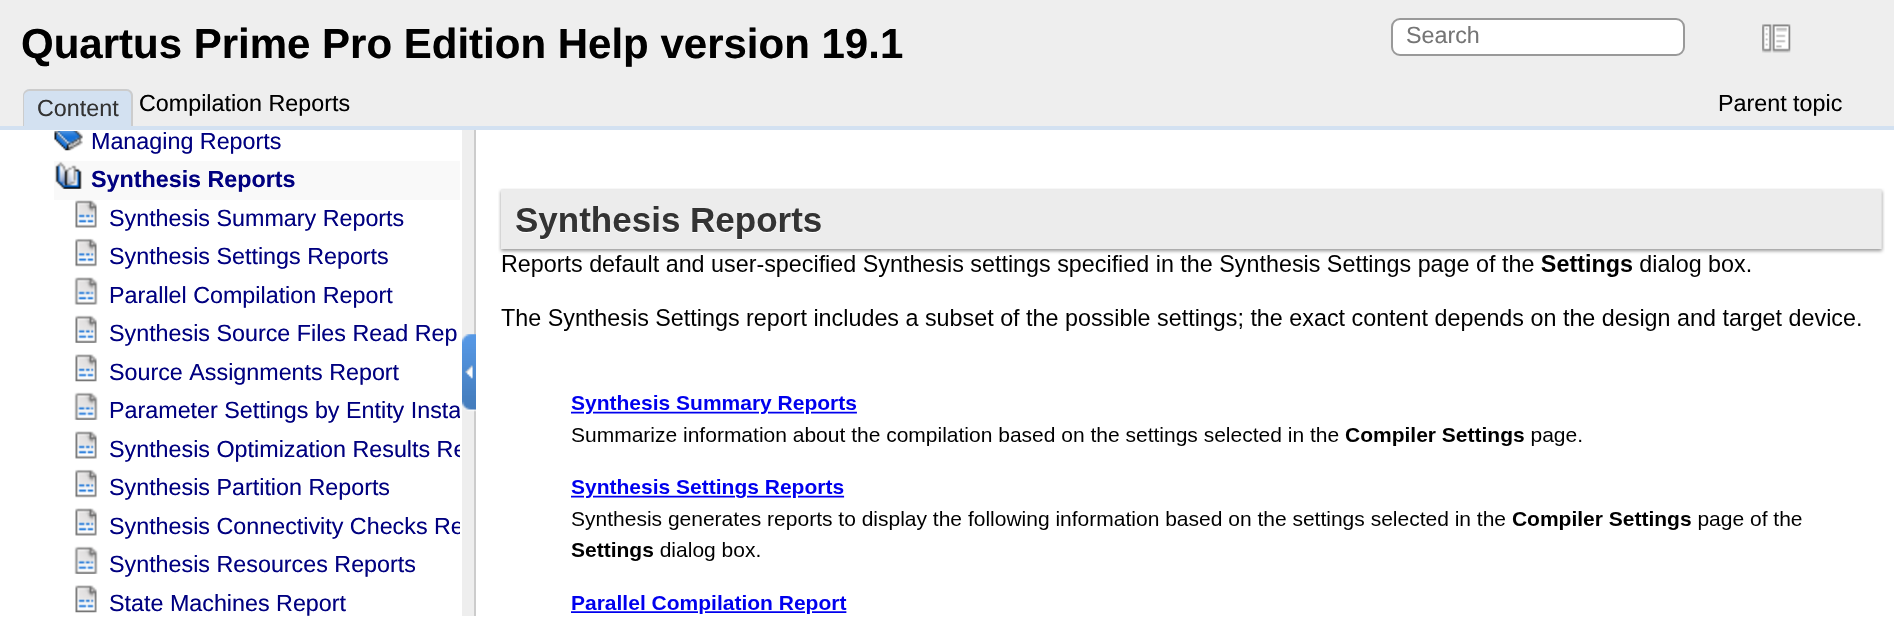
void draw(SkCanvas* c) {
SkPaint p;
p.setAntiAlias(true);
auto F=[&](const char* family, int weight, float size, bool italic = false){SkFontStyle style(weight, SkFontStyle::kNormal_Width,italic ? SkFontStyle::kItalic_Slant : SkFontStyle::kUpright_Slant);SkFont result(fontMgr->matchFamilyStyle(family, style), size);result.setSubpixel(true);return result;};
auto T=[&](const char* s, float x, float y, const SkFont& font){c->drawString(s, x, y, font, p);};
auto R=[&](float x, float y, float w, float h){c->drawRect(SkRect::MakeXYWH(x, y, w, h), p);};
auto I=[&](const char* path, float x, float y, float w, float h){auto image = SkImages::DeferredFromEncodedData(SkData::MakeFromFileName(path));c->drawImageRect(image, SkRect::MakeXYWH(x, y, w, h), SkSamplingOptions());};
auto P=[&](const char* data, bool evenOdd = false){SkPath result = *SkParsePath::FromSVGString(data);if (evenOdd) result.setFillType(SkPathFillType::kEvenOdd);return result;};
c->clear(0xffffffff);
p.setColor(0xffeeeeee);
R(0,0,1894,126);
auto f1 = F("Liberation Sans",700,42);
p.setColor(0xff000000);
T("Quartus Prime Pro Edition Help version 19.1",21,58,f1);
p.setColor(0xffffffff);
c->drawRoundRect(SkRect::MakeXYWH(1392,19,292,36),8,8,p);
p.setStroke(true);
p.setStrokeWidth(2);
p.setColor(0xff999999);
c->drawRoundRect(SkRect::MakeXYWH(1392,19,292,36),8,8,p);
auto f2 = F("Liberation Sans",400,23.3);
p.setStroke(false);
p.setColor(0xff757575);
T("Search",1406,43,f2);
I("1.png",1762,24,29,29);
p.setColor(0xffd3e1f1);
c->drawPath(P("M30 89h96c4 0 7 3 7 7v30h-110v-30c0-4 3-7 7-7z"),p);
p.setColor(0xffcccccc);
c->drawPath(P("M30 89h96c4 0 7 3 7 7v30h-110v-30c0-4 3-7 7-7zm0 2h96c3 0 5 2 5 5v30h-107v-30c0-3 3-5 6-5z",true),p);
p.setColor(0xff333333);
T("Content",37,116,f2);
p.setColor(0xff000000);
T("Compilation Reports",139,111,f2);
T("Parent topic",1718,111,f2);
p.setColor(0xffd3e1f1);
R(0,126,1894,4);
I("2.png",54,131,29,20);
p.setColor(0xff000080);
T("Managing Reports",91,149,f2);
p.setColor(0xfff9f9f9);
R(54,161,406,39);
I("3.png",55,161,27,28);
auto f3 = F("Liberation Sans",700,23.3);
p.setColor(0xff000080);
T("Synthesis Reports",91,187,f3);
I("4.png",75,200,22,28);
T("Synthesis Summary Reports",109,226,f2);
I("5.png",75,238,22,29);
T("Synthesis Settings Reports",109,264,f2);
I("6.png",74,277,24,28);
T("Parallel Compilation Report",109,303,f2);
I("7.png",75,315,22,28);
T("Synthesis Source Files Read Rep",109,341,f2);
I("8.png",75,354,22,28);
T("Source Assignments Report",109,380,f2);
I("9.png",74,392,24,28);
c->save();
c->clipRect(SkRect::MakeXYWH(2,131,458,487));
T("Parameter Settings by Entity Insta",109,418,f2);
c->restore();
I("4.png",75,431,22,28);
c->save();
c->clipRect(SkRect::MakeXYWH(2,131,458,487));
T("Synthesis Optimization Results Re",109,457,f2);
c->restore();
I("10.png",75,469,22,29);
T("Synthesis Partition Reports",109,495,f2);
I("11.png",75,508,22,28);
c->save();
c->clipRect(SkRect::MakeXYWH(2,131,458,487));
T("Synthesis Connectivity Checks Re",109,534,f2);
c->restore();
I("12.png",74,546,24,28);
T("Synthesis Resources Reports",109,572,f2);
I("8.png",75,585,22,28);
T("State Machines Report",109,611,f2);
p.setColor(0xffeeeeee);
R(462,130,12,486);
p.setColor(0xffcccccc);
R(474,130,2,486);
I("13.png",462,334,14,78);
I("14.png",498,188,1387,426);
}
